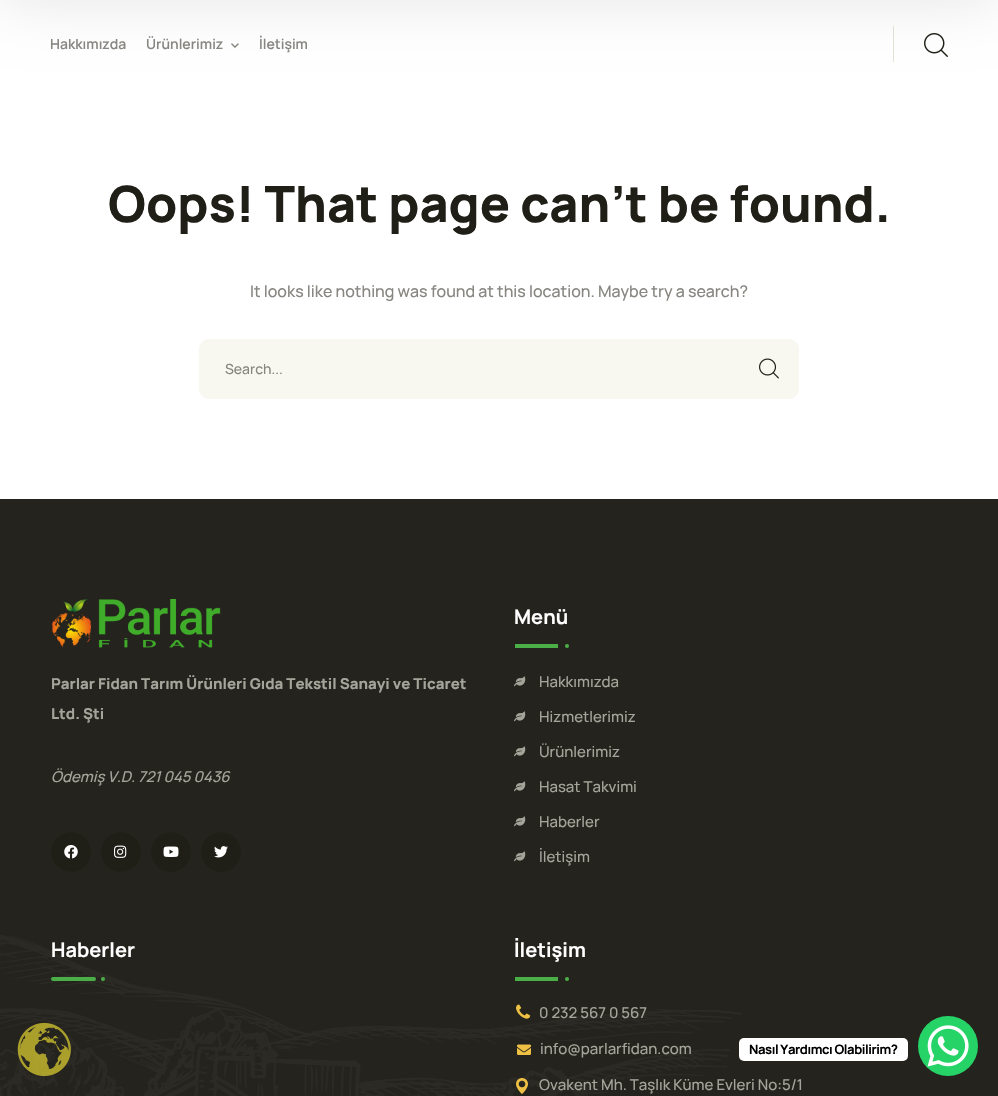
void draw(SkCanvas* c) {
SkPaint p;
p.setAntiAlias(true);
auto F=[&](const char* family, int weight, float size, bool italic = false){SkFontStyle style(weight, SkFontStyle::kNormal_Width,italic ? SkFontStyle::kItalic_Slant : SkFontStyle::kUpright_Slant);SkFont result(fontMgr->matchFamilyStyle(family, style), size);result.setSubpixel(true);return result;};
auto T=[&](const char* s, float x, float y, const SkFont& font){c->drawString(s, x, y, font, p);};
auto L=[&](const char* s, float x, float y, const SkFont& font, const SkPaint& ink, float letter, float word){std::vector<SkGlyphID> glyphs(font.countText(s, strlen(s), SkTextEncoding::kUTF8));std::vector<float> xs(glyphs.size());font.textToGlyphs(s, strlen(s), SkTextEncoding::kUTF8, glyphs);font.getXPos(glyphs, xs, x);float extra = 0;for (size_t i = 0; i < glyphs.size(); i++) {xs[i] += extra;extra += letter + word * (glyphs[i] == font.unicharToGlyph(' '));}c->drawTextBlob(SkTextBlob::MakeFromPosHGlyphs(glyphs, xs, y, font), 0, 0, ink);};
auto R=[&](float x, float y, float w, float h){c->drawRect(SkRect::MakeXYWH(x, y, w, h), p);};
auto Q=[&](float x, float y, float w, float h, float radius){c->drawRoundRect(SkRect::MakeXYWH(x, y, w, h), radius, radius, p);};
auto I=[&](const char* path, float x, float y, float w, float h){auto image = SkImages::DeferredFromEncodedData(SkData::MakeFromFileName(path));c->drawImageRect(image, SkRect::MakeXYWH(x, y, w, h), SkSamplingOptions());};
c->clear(0xffffffff);
p.setColor(0xff24231d);
R(0,499,998,597);
I("14.png",0,935,742,161);
I("1.png",17,1022,54,55);
I("2.png",231,43,8,5);
p.setColor(0xffe4e2d7);
R(893,26,1,36);
I("3.png",924,33,24,24);
p.setColor(0x1a000000);
p.setMaskFilter(SkMaskFilter::MakeBlur(kNormal_SkBlurStyle, 30));
c->drawRect(SkRect::MakeXYWH(0,-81,998,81),p);
p.setMaskFilter(nullptr);
auto f1 = F("Manrope",600,14);
p.setColor(0xff878680);
T("Hakkımızda",50,49,f1);
T("Ürünlerimiz",146,49,f1);
T("İletişim",259,49,f1);
auto f2 = F("Manrope",800,50);
p.setColor(0xff1f1e17);
T("Oops! That page can’t be found.",108,222,f2);
auto f3 = F("Manrope",500,16);
p.setColor(0xff878680);
T("It looks like nothing was found at this location. Maybe try a search?",250,297,f3);
p.setColor(0xfff8f7f0);
c->drawRoundRect(SkRect::MakeXYWH(199.5,339.5,599,59),9.5,9.5,p);
p.setStroke(true);
p.setStrokeWidth(1);
c->drawRoundRect(SkRect::MakeXYWH(199.5,339.5,599,59),9.5,9.5,p);
auto f4 = F("Manrope",500,14);
p.setStroke(false);
p.setColor(0xff878680);
T("Search...",225,374,f4);
I("4.png",759,358,20,21);
I("5.png",51,599,170,49);
auto f5 = F("Manrope",800,15);
p.setColor(0xffa5a49a);
T("Parlar Fidan Tarım Ürünleri Gıda Tekstil Sanayi ve Ticaret",51,689,f5);
T("Ltd. Şti",51,719,f5);
auto f6 = F("Manrope",500,15,true);
T("Ödemiş V.D. 721 045 0436",51,782,f6);
p.setColor(0xff1f1e17);
c->drawCircle(71,852,20,p);
I("6.png",64,845,14,14);
c->drawCircle(121,852,20,p);
I("7.png",114,845,13,13);
c->drawCircle(171,852,20,p);
I("8.png",163,846,16,11);
c->drawCircle(221,852,20,p);
I("9.png",214,846,14,12);
auto f7 = F("Manrope",700,20);
p.setColor(0xffffffff);
T("Menü",514,624,f7);
p.setColor(0xff4baf47);
R(515,644,43,4);
c->drawCircle(567,646,2,p);
I("10.png",514,676,12,11);
auto f8 = F("Manrope",500,15);
p.setColor(0xffa5a49a);
T("Hakkımızda",539,687,f8);
I("10.png",514,711,12,11);
T("Hizmetlerimiz",539,722,f8);
I("10.png",514,746,12,11);
T("Ürünlerimiz",539,757,f8);
I("10.png",514,781,12,11);
T("Hasat Takvimi",539,792,f8);
I("10.png",514,816,12,11);
T("Haberler",539,827,f8);
I("10.png",514,851,12,11);
T("İletişim",539,862,f8);
p.setColor(0xffffffff);
T("Haberler",51,957,f7);
p.setColor(0xff4baf47);
Q(51,977,45,4,2);
c->drawCircle(103,979,2,p);
p.setColor(0xffffffff);
T("İletişim",514,957,f7);
p.setColor(0xff4baf47);
R(515,977,43,4);
c->drawCircle(567,979,2,p);
I("11.png",516,1004,15,15);
p.setColor(0xffa5a49a);
T("0 232 567 0 567",539,1018,f8);
I("12.png",517,1044,14,11);
T("info@parlarfidan.com",540,1054,f8);
I("13.png",516,1078,12,16);
T("Ovakent Mh. Taşlık Küme Evleri No:5/1",539,1090,f8);
p.setColor(0xffffffff);
Q(739,1038,169,23,5);
auto f9 = F("Manrope",700,13);
p.setColor(0xff000000);
L("Nasıl Yardımcı Olabilirim?",749,1054,f9,p,-.4,0);
p.setColor(0xff25d366);
c->drawCircle(948,1046,30,p);
I("15.png",927,1025,42,42);
}
